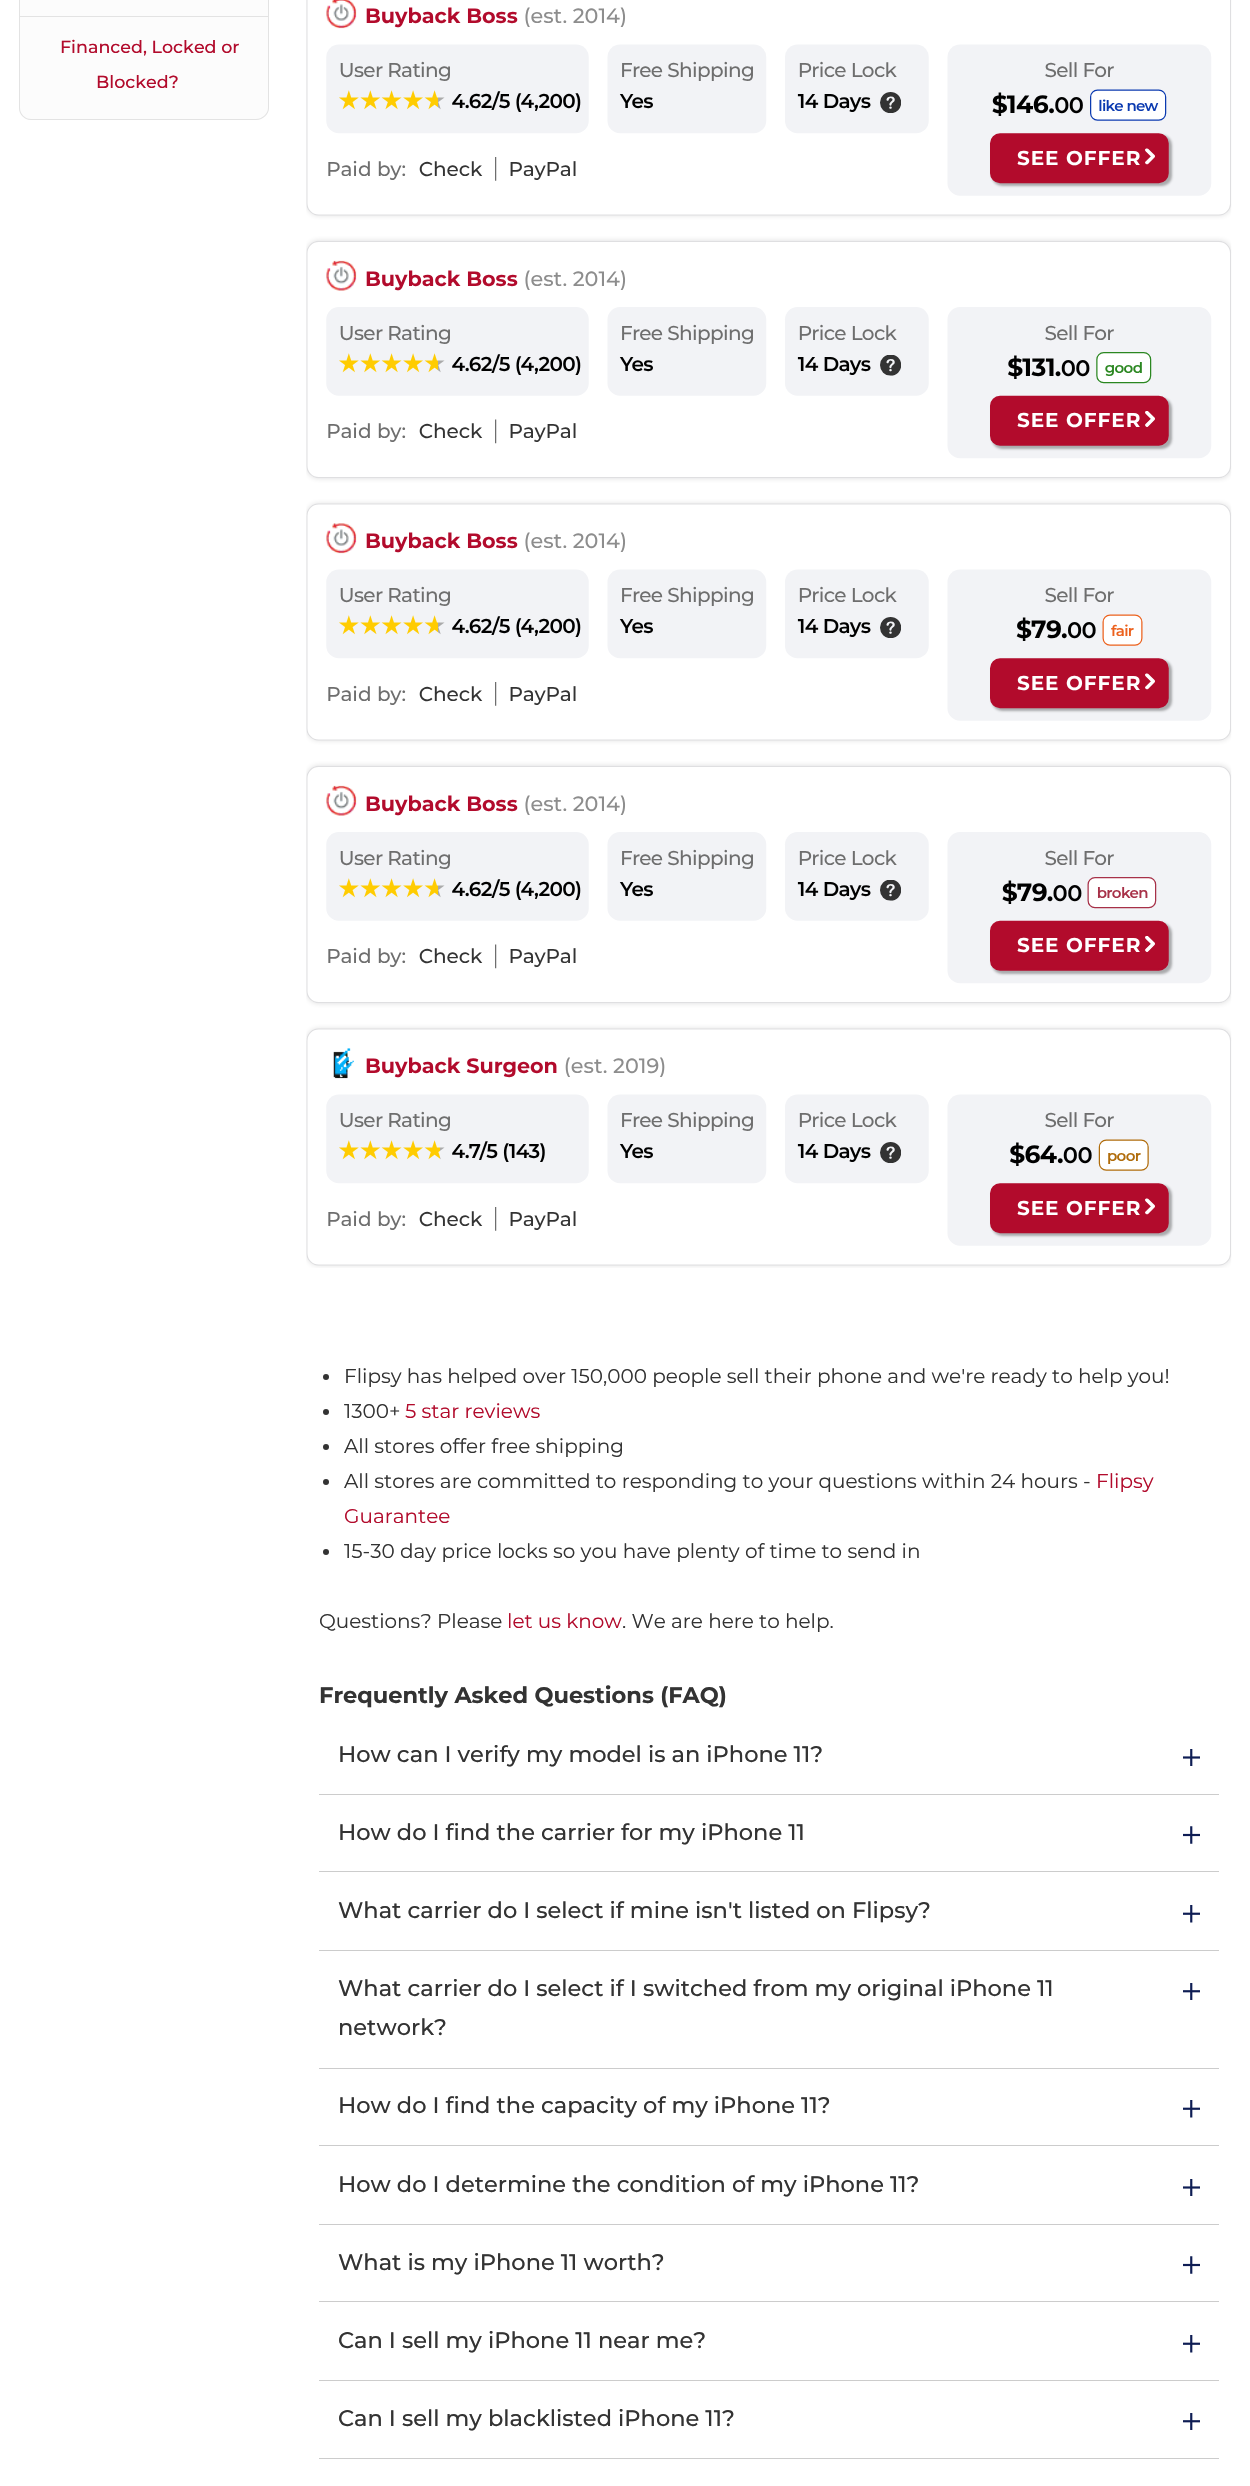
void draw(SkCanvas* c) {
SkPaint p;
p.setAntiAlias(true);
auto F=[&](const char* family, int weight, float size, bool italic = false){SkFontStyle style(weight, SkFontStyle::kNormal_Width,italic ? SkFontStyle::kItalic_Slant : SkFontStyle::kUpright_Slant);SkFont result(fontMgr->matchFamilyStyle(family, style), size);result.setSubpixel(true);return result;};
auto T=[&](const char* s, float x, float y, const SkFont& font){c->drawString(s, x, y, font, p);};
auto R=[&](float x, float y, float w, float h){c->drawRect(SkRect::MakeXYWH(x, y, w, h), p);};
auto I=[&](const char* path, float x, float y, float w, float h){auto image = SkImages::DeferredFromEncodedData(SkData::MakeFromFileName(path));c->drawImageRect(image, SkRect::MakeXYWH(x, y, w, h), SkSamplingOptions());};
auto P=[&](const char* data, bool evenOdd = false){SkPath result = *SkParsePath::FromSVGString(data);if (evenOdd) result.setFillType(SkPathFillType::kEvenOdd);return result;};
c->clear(0xffffffff);
p.setColor(0xfffcfcfc);
c->drawPath(P("M19-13h250v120c0 7-6 13-13 13h-224c-7 0-13-6-13-13z"),p);
p.setColor(0xffe3e3e3);
c->drawPath(P("M19-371h250v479c0 6-6 12-13 12h-225c-7 0-12-6-12-12zm1 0h248v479c0 6-6 11-12 11h-225c-6 0-11-5-11-11z",true),p);
R(20,16,248,1);
auto f1 = F("Montserrat",500,17.5);
p.setColor(0xffb20b2c);
T("Financed, Locked or",60,53,f1);
T("Blocked?",96,88,f1);
I("1.png",306,0,926,1268);
p.setColor(0xff333333);
c->drawCircle(326,1377,3,p);
auto f2 = F("Montserrat",400,20);
T("Flipsy has helped over 150,000 people sell their phone and we're ready to help you!",344,1383,f2);
c->drawCircle(326,1412,3,p);
T("1300+",344,1418,f2);
p.setColor(0xffb20b2c);
T("5 star reviews",405,1418,f2);
p.setColor(0xff333333);
c->drawCircle(326,1447,3,p);
T("All stores offer free shipping",344,1453,f2);
c->drawCircle(326,1482,3,p);
T("All stores are committed to responding to your questions within 24 hours -",344,1488,f2);
p.setColor(0xffb20b2c);
T("Flipsy",1096,1488,f2);
T("Guarantee",344,1523,f2);
p.setColor(0xff333333);
c->drawCircle(326,1552,3,p);
T("15-30 day price locks so you have plenty of time to send in",344,1558,f2);
T("Questions? Please",319,1628,f2);
p.setColor(0xffb20b2c);
T("let us know",507,1628,f2);
p.setColor(0xff333333);
T(". We are here to help.",622,1628,f2);
auto f3 = F("Montserrat",700,22.5);
T("Frequently Asked Questions (FAQ)",319,1703,f3);
p.setColor(0xffcccccc);
R(319,1794,900,1);
auto f4 = F("Montserrat",500,22.5);
p.setColor(0xff333333);
T("How can I verify my model is an iPhone 11?",338,1762,f4);
I("2.png",1183,1749,17,17);
p.setColor(0xffcccccc);
R(319,1871,900,1);
p.setColor(0xff333333);
T("How do I find the carrier for my iPhone 11",338,1840,f4);
I("3.png",1183,1826,17,18);
p.setColor(0xffcccccc);
R(319,1950,900,1);
p.setColor(0xff333333);
T("What carrier do I select if mine isn't listed on Flipsy?",338,1918,f4);
I("4.png",1183,1905,17,18);
p.setColor(0xffcccccc);
R(319,2068,900,1);
p.setColor(0xff333333);
T("What carrier do I select if I switched from my original iPhone 11",338,1996,f4);
T("network?",338,2035,f4);
I("5.png",1183,1983,17,17);
p.setColor(0xffcccccc);
R(319,2145,900,1);
p.setColor(0xff333333);
T("How do I find the capacity of my iPhone 11?",338,2113,f4);
I("4.png",1183,2100,17,18);
p.setColor(0xffcccccc);
R(319,2224,900,1);
p.setColor(0xff333333);
T("How do I determine the condition of my iPhone 11?",338,2192,f4);
I("2.png",1183,2179,17,17);
p.setColor(0xffcccccc);
R(319,2301,900,1);
p.setColor(0xff333333);
T("What is my iPhone 11 worth?",338,2270,f4);
I("3.png",1183,2256,17,18);
p.setColor(0xffcccccc);
R(319,2380,900,1);
p.setColor(0xff333333);
T("Can I sell my iPhone 11 near me?",338,2348,f4);
I("4.png",1183,2335,17,18);
p.setColor(0xffcccccc);
R(319,2458,900,1);
p.setColor(0xff333333);
T("Can I sell my blacklisted iPhone 11?",338,2426,f4);
I("5.png",1183,2413,17,17);
}
